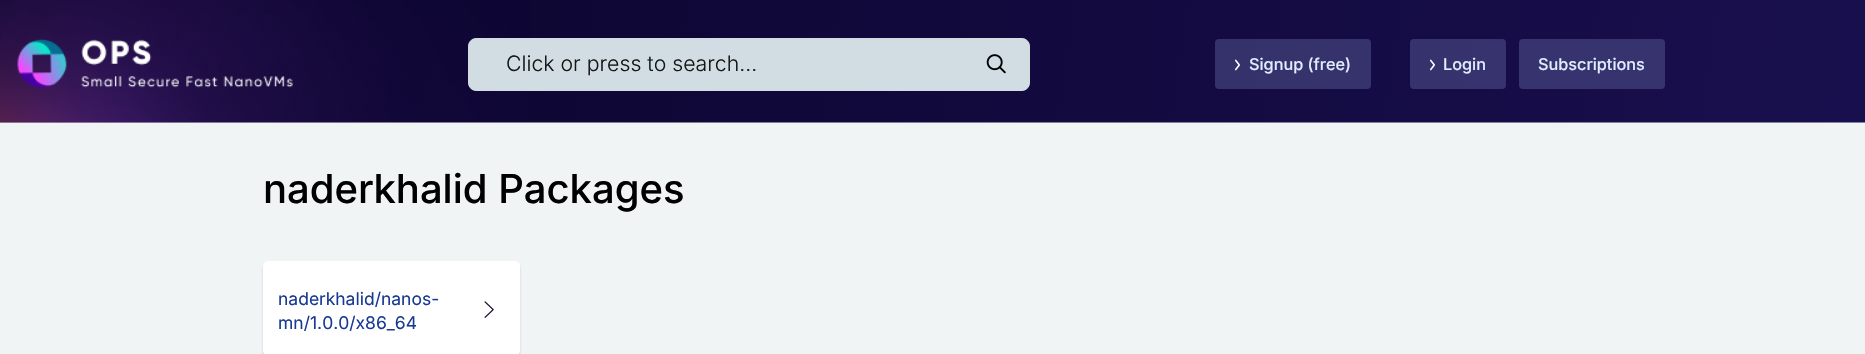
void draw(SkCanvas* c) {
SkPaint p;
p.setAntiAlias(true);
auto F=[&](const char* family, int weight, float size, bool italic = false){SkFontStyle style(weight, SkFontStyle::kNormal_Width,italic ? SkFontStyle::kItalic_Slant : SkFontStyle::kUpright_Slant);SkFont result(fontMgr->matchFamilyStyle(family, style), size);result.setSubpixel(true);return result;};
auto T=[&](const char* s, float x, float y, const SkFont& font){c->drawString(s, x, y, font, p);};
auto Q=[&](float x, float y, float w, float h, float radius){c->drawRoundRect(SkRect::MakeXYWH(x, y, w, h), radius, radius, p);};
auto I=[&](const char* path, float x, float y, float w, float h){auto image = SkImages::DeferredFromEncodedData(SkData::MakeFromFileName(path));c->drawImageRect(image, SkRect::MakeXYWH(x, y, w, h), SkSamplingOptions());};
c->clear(0xfff0f4f4);
I("1.png",0,0,1865,123);
I("2.png",17,38,276,50);
p.setColor(0xffd1dde3);
c->drawRoundRect(SkRect::MakeXYWH(468.5,38.5,561,52),7.5,7.5,p);
p.setStroke(true);
p.setStrokeWidth(1);
c->drawRoundRect(SkRect::MakeXYWH(468.5,38.5,561,52),7.5,7.5,p);
auto f1 = F("Inter",300,21.25);
p.setStroke(false);
p.setColor(0xff151617);
T("Click or press to search...",506,71,f1);
I("3.png",986,54,20,20);
p.setColor(0x80565794);
Q(1215,39,156,50,4);
I("4.png",1235,59,5,12);
auto f2 = F("Inter",500,16.25);
p.setColor(0xffe2ecff);
T("Signup (free)",1249,70,f2);
p.setColor(0x80565794);
Q(1410,39,96,50,4);
I("5.png",1430,59,5,12);
p.setColor(0xffe2ecff);
T("Login",1443,70,f2);
p.setColor(0x80565794);
Q(1519,39,146,50,4);
p.setColor(0xffe2ecff);
T("Subscriptions",1538,70,f2);
auto f3 = F("Inter",500,40);
p.setColor(0xff000000);
T("naderkhalid Packages",263,203,f3);
p.setColor(0x33000000);
p.setMaskFilter(SkMaskFilter::MakeBlur(kNormal_SkBlurStyle, 1));
c->drawRoundRect(SkRect::MakeXYWH(263,264,257,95),5,5,p);
p.setMaskFilter(nullptr);
p.setColor(0xffffffff);
Q(263,261,257,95,5);
auto f4 = F("Inter",400,17.5);
p.setColor(0xff183a93);
T("naderkhalid/nanos-",278,305,f4);
T("mn/1.0.0/x86_64",278,329,f4);
I("6.png",484,301,10,17);
}
